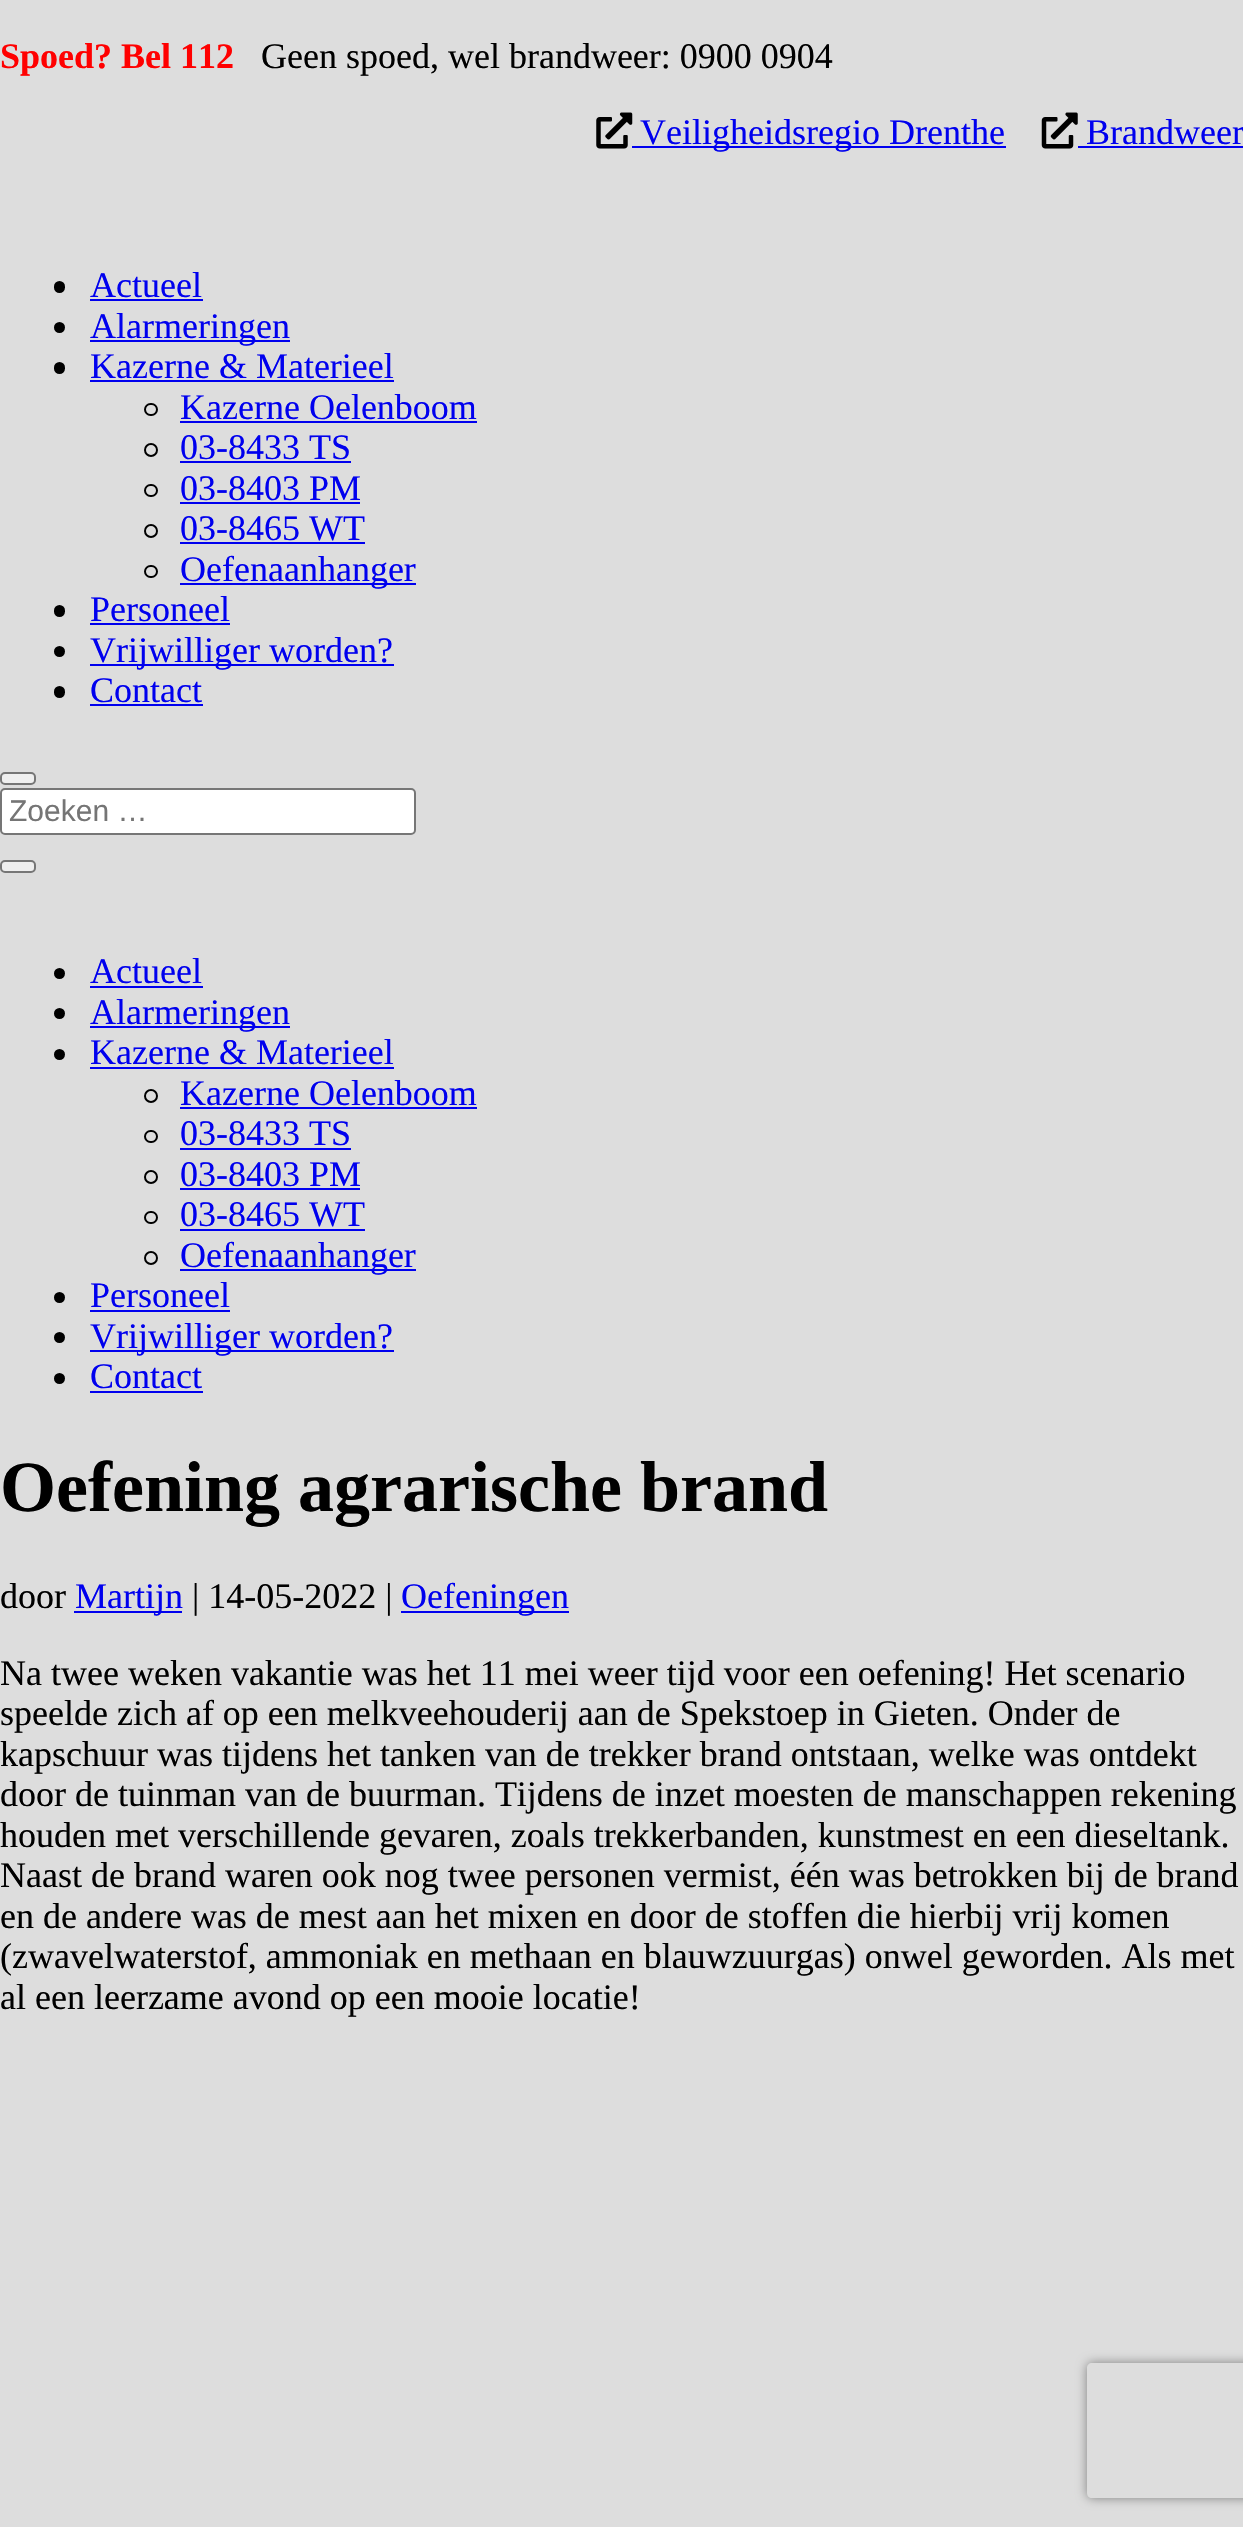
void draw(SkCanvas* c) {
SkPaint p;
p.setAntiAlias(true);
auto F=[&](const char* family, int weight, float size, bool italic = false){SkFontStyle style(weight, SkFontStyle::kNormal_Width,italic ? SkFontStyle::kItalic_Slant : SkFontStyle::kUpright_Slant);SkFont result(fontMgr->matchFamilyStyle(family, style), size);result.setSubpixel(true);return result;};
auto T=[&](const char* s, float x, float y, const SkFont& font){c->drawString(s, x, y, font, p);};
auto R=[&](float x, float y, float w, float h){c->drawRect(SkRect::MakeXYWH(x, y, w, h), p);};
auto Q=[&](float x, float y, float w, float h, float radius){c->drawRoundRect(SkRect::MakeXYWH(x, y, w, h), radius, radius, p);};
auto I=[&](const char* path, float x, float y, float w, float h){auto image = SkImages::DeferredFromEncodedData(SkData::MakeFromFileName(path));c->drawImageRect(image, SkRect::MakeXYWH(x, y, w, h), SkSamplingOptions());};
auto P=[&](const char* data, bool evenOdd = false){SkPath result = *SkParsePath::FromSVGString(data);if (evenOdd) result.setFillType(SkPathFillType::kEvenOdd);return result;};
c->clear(0xffdddddd);
auto f1 = F("Liberation Serif",700,36);
p.setColor(0xffff0000);
T("Spoed? Bel 112",0,68,f1);
auto f2 = F("Liberation Serif",400,36);
p.setColor(0xff000000);
T("Geen spoed, wel brandweer: 0900 0904",261,68,f2);
I("1.png",596,112,37,37);
p.setColor(0xff0000ee);
R(632,146,374,2);
T("Veiligheidsregio Drenthe",640,144,f2);
I("2.png",1041,112,37,37);
T("Brandweer",1086,144,f2);
R(1078,146,165,2);
p.setColor(0xff000000);
Q(54,281,11,12,5.5);
p.setColor(0xff0000ee);
T("Actueel",90,297,f2);
R(90,299,113,2);
p.setColor(0xff000000);
c->drawCircle(59.5,327.5,5.5,p);
p.setColor(0xff0000ee);
R(90,340,200,2);
T("Alarmeringen",90,338,f2);
p.setColor(0xff000000);
Q(54,362,11,12,5.5);
p.setColor(0xff0000ee);
T("Kazerne & Materieel",90,378,f2);
R(90,380,304,2);
p.setStroke(true);
p.setStrokeWidth(2);
p.setColor(0xff000000);
c->drawRoundRect(SkRect::MakeXYWH(145,404,12,11),5.5,5.5,p);
p.setStroke(false);
p.setColor(0xff0000ee);
T("Kazerne Oelenboom",180,419,f2);
R(180,421,297,2);
p.setStroke(true);
p.setColor(0xff000000);
c->drawCircle(151,450,6,p);
p.setStroke(false);
p.setColor(0xff0000ee);
T("03-8433 TS",180,459,f2);
R(180,461,171,2);
p.setStroke(true);
p.setColor(0xff000000);
c->drawRoundRect(SkRect::MakeXYWH(145,485,12,11),5.5,5.5,p);
p.setStroke(false);
p.setColor(0xff0000ee);
T("03-8403 PM",180,500,f2);
R(180,502,180,2);
p.setStroke(true);
p.setColor(0xff000000);
c->drawCircle(151,531,6,p);
p.setStroke(false);
p.setColor(0xff0000ee);
T("03-8465 WT",180,540,f2);
R(180,542,185,2);
p.setStroke(true);
p.setColor(0xff000000);
c->drawRoundRect(SkRect::MakeXYWH(145,566,12,11),5.5,5.5,p);
p.setStroke(false);
p.setColor(0xff0000ee);
R(180,583,236,2);
T("Oefenaanhanger",180,581,f2);
p.setColor(0xff000000);
Q(54,605,11,12,5.5);
p.setColor(0xff0000ee);
T("Personeel",90,621,f2);
R(90,623,140,2);
p.setColor(0xff000000);
c->drawCircle(59.5,651.5,5.5,p);
p.setColor(0xff0000ee);
R(90,664,304,2);
T("Vrijwilliger worden?",90,662,f2);
p.setColor(0xff000000);
Q(54,686,11,12,5.5);
p.setColor(0xff0000ee);
T("Contact",90,702,f2);
R(90,704,113,2);
p.setColor(0xffefefef);
c->drawRoundRect(SkRect::MakeXYWH(1,773,34,11),4,4,p);
p.setStroke(true);
p.setColor(0xff767676);
c->drawRoundRect(SkRect::MakeXYWH(1,773,34,11),4,4,p);
p.setStroke(false);
p.setColor(0xffffffff);
c->drawRoundRect(SkRect::MakeXYWH(1,789,414,45),4,4,p);
p.setStroke(true);
p.setColor(0xff767676);
c->drawRoundRect(SkRect::MakeXYWH(1,789,414,45),4,4,p);
auto f3 = F("Liberation Sans",400,30);
p.setStroke(false);
p.setColor(0xff757575);
T("Zoeken …",9,821,f3);
p.setColor(0xffefefef);
c->drawRoundRect(SkRect::MakeXYWH(1,861,34,11),4,4,p);
p.setStroke(true);
p.setColor(0xff767676);
c->drawRoundRect(SkRect::MakeXYWH(1,861,34,11),4,4,p);
p.setStroke(false);
p.setColor(0xff000000);
c->drawCircle(59.5,973.5,5.5,p);
p.setColor(0xff0000ee);
T("Actueel",90,983,f2);
R(90,986,113,2);
p.setColor(0xff000000);
c->drawCircle(59.5,1013.5,5.5,p);
p.setColor(0xff0000ee);
R(90,1026,200,2);
T("Alarmeringen",90,1024,f2);
p.setColor(0xff000000);
c->drawCircle(59.5,1054.5,5.5,p);
p.setColor(0xff0000ee);
T("Kazerne & Materieel",90,1064,f2);
R(90,1067,304,2);
p.setStroke(true);
p.setColor(0xff000000);
c->drawCircle(151,1096,6,p);
p.setStroke(false);
p.setColor(0xff0000ee);
T("Kazerne Oelenboom",180,1105,f2);
R(180,1107,297,2);
p.setStroke(true);
p.setColor(0xff000000);
c->drawRoundRect(SkRect::MakeXYWH(145,1131,12,11),5.5,5.5,p);
p.setStroke(false);
p.setColor(0xff0000ee);
T("03-8433 TS",180,1145,f2);
R(180,1148,171,2);
p.setStroke(true);
p.setColor(0xff000000);
c->drawCircle(151,1177,6,p);
p.setStroke(false);
p.setColor(0xff0000ee);
T("03-8403 PM",180,1186,f2);
R(180,1188,180,2);
p.setStroke(true);
p.setColor(0xff000000);
c->drawRoundRect(SkRect::MakeXYWH(145,1212,12,11),5.5,5.5,p);
p.setStroke(false);
p.setColor(0xff0000ee);
T("03-8465 WT",180,1226,f2);
R(180,1229,185,2);
p.setStroke(true);
p.setColor(0xff000000);
c->drawCircle(151,1258,6,p);
p.setStroke(false);
p.setColor(0xff0000ee);
R(180,1269,236,2);
T("Oefenaanhanger",180,1267,f2);
p.setColor(0xff000000);
c->drawCircle(59.5,1297.5,5.5,p);
p.setColor(0xff0000ee);
T("Personeel",90,1307,f2);
R(90,1310,140,2);
p.setColor(0xff000000);
c->drawCircle(59.5,1337.5,5.5,p);
p.setColor(0xff0000ee);
R(90,1350,304,2);
T("Vrijwilliger worden?",90,1348,f2);
p.setColor(0xff000000);
c->drawCircle(59.5,1378.5,5.5,p);
p.setColor(0xff0000ee);
T("Contact",90,1388,f2);
R(90,1391,113,2);
auto f4 = F("Liberation Serif",700,72);
p.setColor(0xff000000);
T("Oefening agrarische brand",0,1511,f4);
T("door",0,1608,f2);
p.setColor(0xff0000ee);
R(74,1611,108,2);
T("Martijn",75,1608,f2);
p.setColor(0xff000000);
T("| 14-05-2022 |",192,1608,f2);
p.setColor(0xff0000ee);
R(401,1611,168,2);
T("Oefeningen",401,1608,f2);
p.setColor(0xff000000);
T("Na twee weken vakantie was het 11 mei weer tijd voor een oefening! Het scenario",0,1685,f2);
T("speelde zich af op een melkveehouderij aan de Spekstoep in Gieten. Onder de",0,1725,f2);
T("kapschuur was tijdens het tanken van de trekker brand ontstaan, welke was ontdekt",0,1766,f2);
T("door de tuinman van de buurman. Tijdens de inzet moesten de manschappen rekening",0,1806,f2);
T("houden met verschillende gevaren, zoals trekkerbanden, kunstmest en een dieseltank.",0,1847,f2);
T("Naast de brand waren ook nog twee personen vermist, één was betrokken bij de brand",0,1887,f2);
T("en de andere was de mest aan het mixen en door de stoffen die hierbij vrij komen",0,1928,f2);
T("(zwavelwaterstof, ammoniak en methaan en blauwzuurgas) onwel geworden. Als met",0,1968,f2);
T("al een leerzame avond op een mooie locatie!",0,2009,f2);
c->save();
c->clipPath(P("M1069 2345h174v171h-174zm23 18h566c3 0 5 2 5 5v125c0 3-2 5-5 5h-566c-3 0-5-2-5-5v-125c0-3 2-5 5-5z",true),true);
p.setColor(0xff808080);
p.setMaskFilter(SkMaskFilter::MakeBlur(kNormal_SkBlurStyle, 5.5));
c->drawRoundRect(SkRect::MakeXYWH(1087,2363,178,135),5,5,p);
p.setMaskFilter(nullptr);
c->restore();
}
